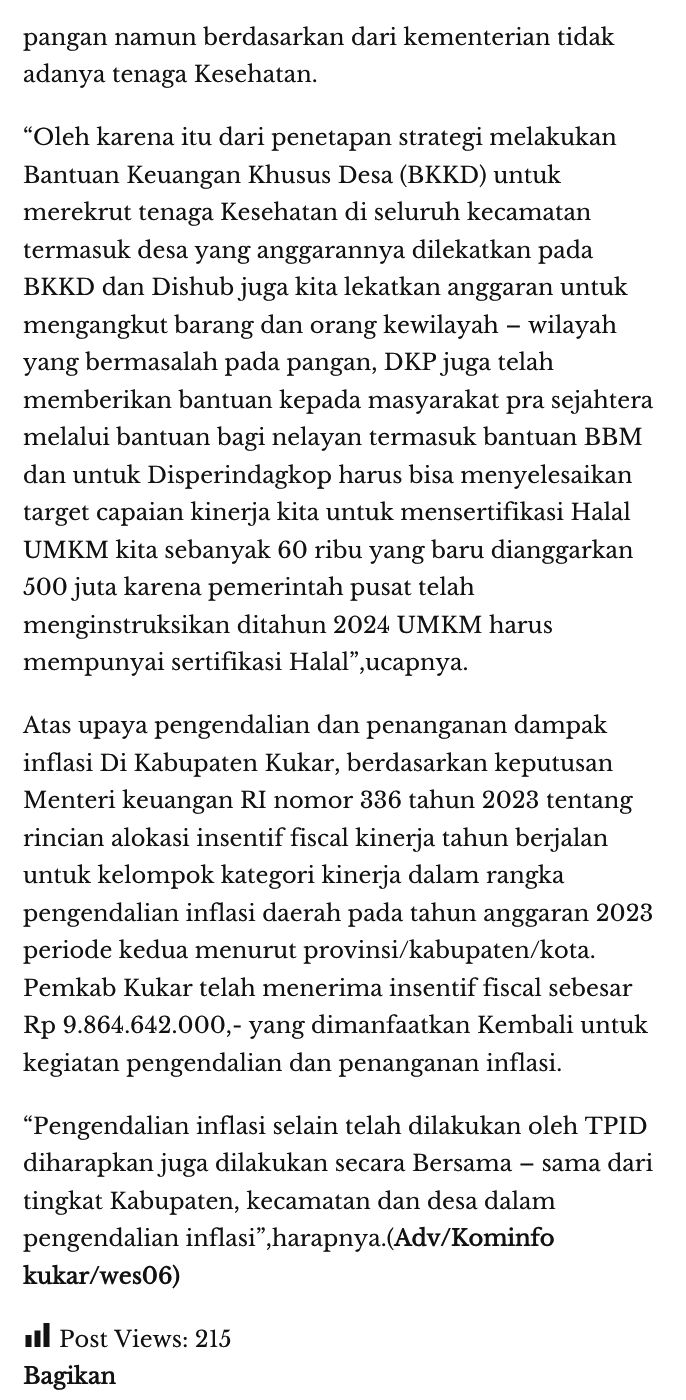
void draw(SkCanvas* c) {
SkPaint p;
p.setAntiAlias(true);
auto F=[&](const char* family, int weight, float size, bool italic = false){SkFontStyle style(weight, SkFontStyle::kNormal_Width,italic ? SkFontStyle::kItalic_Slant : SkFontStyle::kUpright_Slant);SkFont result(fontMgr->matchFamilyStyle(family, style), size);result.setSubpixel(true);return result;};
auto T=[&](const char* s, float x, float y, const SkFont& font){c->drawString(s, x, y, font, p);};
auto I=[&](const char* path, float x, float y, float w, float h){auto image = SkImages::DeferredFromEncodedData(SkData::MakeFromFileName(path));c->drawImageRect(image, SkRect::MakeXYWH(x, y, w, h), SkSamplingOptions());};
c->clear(0xffffffff);
auto f1 = F("Libre Baskerville",400,22.5);
p.setColor(0xff121212);
T("pangan namun berdasarkan dari kementerian tidak",23,45,f1);
T("adanya tenaga Kesehatan.",23,82,f1);
T("“Oleh karena itu dari penetapan strategi melakukan",23,145,f1);
T("Bantuan Keuangan Khusus Desa (BKKD) untuk",23,183,f1);
T("merekrut tenaga Kesehatan di seluruh kecamatan",23,220,f1);
T("termasuk desa yang anggarannya dilekatkan pada",23,258,f1);
T("BKKD dan Dishub juga kita lekatkan anggaran untuk",23,295,f1);
T("mengangkut barang dan orang kewilayah – wilayah",23,333,f1);
T("yang bermasalah pada pangan, DKP juga telah",23,370,f1);
T("memberikan bantuan kepada masyarakat pra sejahtera",23,408,f1);
T("melalui bantuan bagi nelayan termasuk bantuan BBM",23,445,f1);
T("dan untuk Disperindagkop harus bisa menyelesaikan",23,483,f1);
T("target capaian kinerja kita untuk mensertifikasi Halal",23,520,f1);
T("UMKM kita sebanyak 60 ribu yang baru dianggarkan",23,558,f1);
T("500 juta karena pemerintah pusat telah",23,595,f1);
T("menginstruksikan ditahun 2024 UMKM harus",23,633,f1);
T("mempunyai sertifikasi Halal”,ucapnya.",23,670,f1);
T("Atas upaya pengendalian dan penanganan dampak",23,733,f1);
T("inflasi Di Kabupaten Kukar, berdasarkan keputusan",23,771,f1);
T("Menteri keuangan RI nomor 336 tahun 2023 tentang",23,808,f1);
T("rincian alokasi insentif fiscal kinerja tahun berjalan",23,846,f1);
T("untuk kelompok kategori kinerja dalam rangka",23,883,f1);
T("pengendalian inflasi daerah pada tahun anggaran 2023",23,921,f1);
T("periode kedua menurut provinsi/kabupaten/kota.",23,958,f1);
T("Pemkab Kukar telah menerima insentif fiscal sebesar",23,996,f1);
T("Rp 9.864.642.000,- yang dimanfaatkan Kembali untuk",23,1033,f1);
T("kegiatan pengendalian dan penanganan inflasi.",23,1071,f1);
T("“Pengendalian inflasi selain telah dilakukan oleh TPID",23,1134,f1);
T("diharapkan juga dilakukan secara Bersama – sama dari",23,1171,f1);
T("tingkat Kabupaten, kecamatan dan desa dalam",23,1209,f1);
T("pengendalian inflasi”,harapnya.(",23,1246,f1);
auto f2 = F("Libre Baskerville",700,22.5);
T("Adv/Kominfo",394,1246,f2);
T("kukar/wes06)",23,1284,f2);
I("1.png",25,1323,25,24);
T("Post Views: 215",59,1347,f1);
T("Bagikan",23,1384,f2);
}
